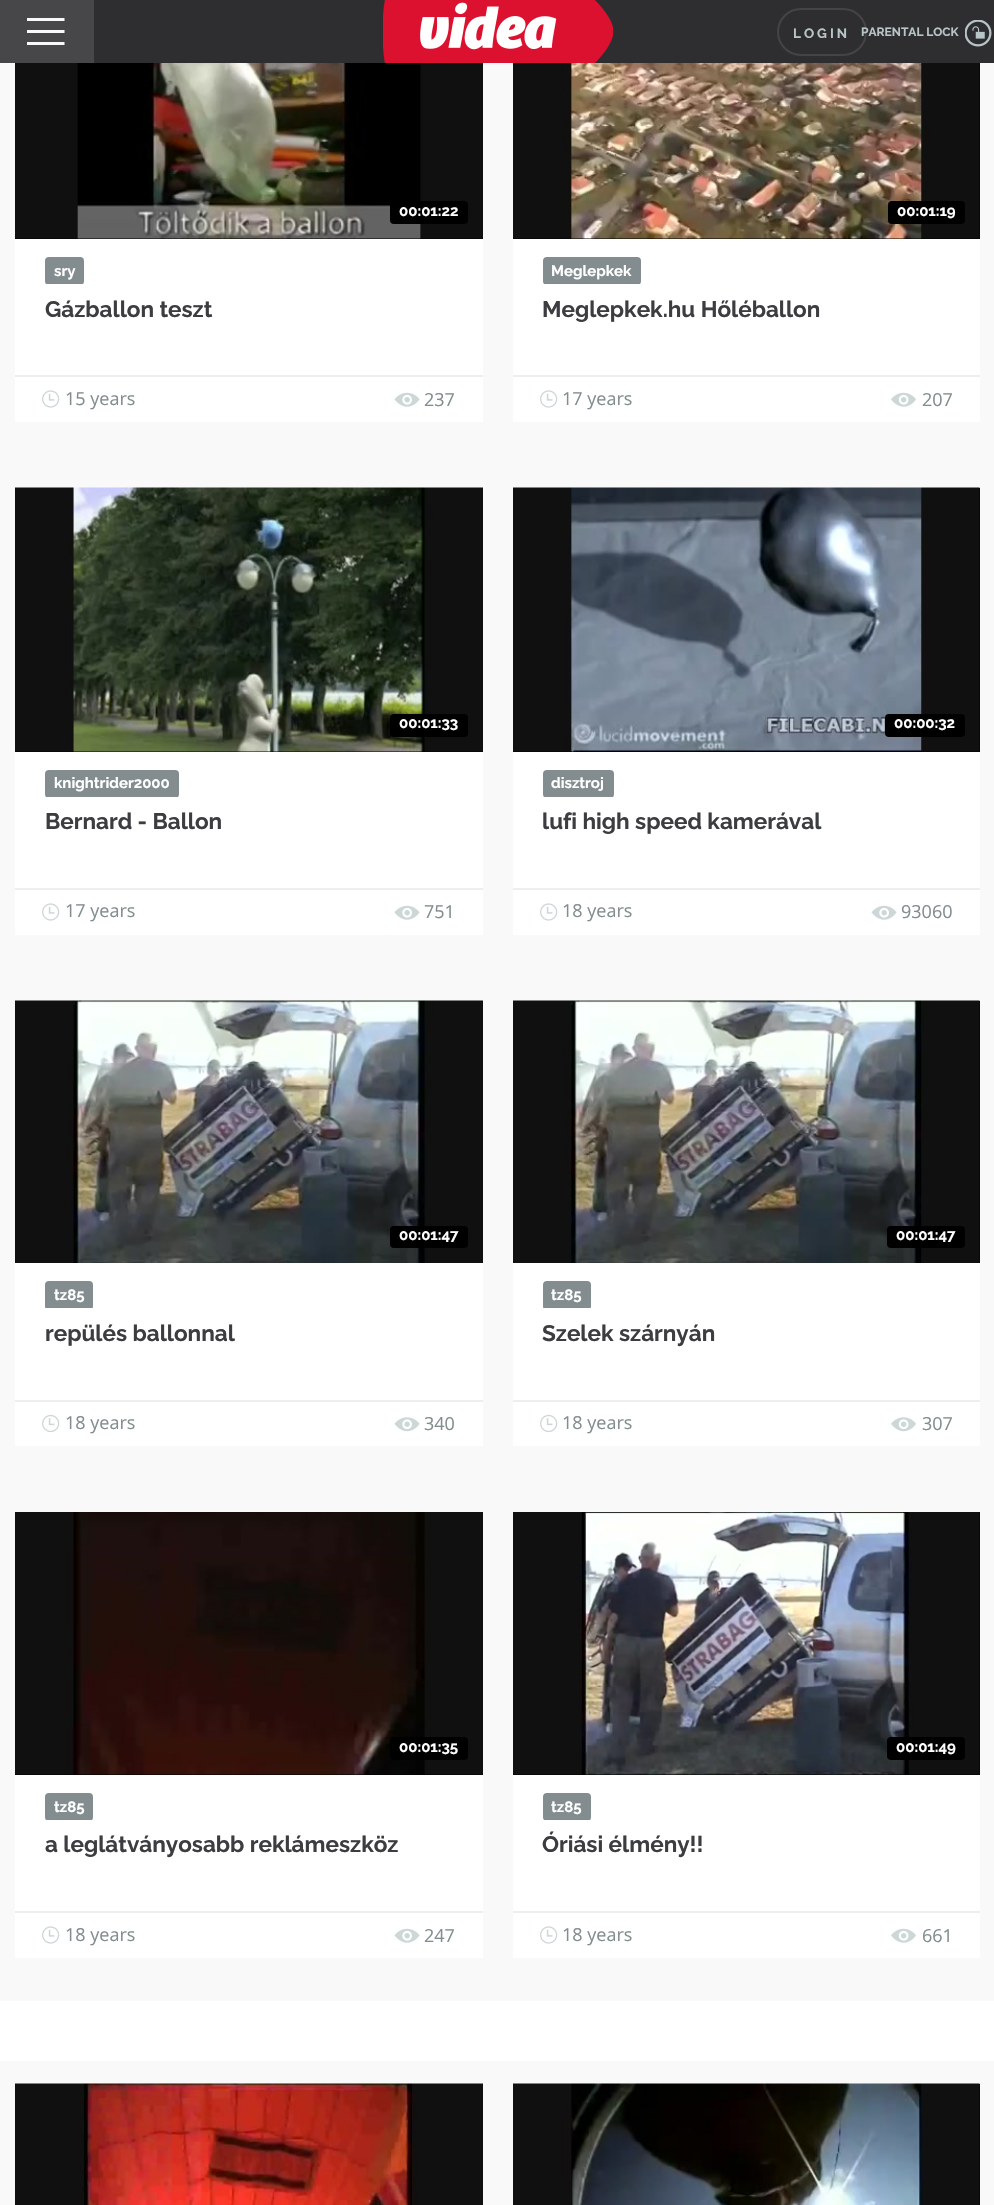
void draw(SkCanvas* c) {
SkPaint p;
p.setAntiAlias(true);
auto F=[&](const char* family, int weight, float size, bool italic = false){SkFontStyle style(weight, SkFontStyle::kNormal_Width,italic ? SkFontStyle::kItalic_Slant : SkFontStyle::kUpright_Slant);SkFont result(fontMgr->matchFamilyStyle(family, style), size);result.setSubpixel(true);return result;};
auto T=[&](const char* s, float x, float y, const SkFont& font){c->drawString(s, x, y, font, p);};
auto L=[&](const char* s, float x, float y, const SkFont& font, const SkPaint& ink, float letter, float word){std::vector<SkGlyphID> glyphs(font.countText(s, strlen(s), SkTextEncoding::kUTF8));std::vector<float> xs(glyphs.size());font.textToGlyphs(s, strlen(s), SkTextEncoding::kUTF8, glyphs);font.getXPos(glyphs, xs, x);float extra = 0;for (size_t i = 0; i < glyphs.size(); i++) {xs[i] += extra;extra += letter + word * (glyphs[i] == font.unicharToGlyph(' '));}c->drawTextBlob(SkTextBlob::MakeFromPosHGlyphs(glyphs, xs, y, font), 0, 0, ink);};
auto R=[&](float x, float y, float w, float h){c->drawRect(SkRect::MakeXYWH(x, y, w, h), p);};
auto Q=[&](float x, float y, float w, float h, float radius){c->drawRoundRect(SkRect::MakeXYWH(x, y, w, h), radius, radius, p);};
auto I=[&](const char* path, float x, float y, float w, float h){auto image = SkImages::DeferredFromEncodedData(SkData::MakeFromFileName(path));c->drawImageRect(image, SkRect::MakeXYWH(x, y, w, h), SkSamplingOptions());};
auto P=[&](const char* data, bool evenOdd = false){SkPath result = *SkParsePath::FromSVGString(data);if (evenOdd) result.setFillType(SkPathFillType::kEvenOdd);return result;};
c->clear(0xffffffff);
p.setColor(0xff2e2e30);
R(94,0,900,63);
I("1.png",383,0,231,63);
p.setColor(0xff47474a);
R(0,0,92,63);
p.setColor(0xff48484a);
R(92,0,2,63);
p.setColor(0xfff9f9f9);
c->drawPath(P("M27 42v3h37.5v-3zm0-12v3h37.5v-3zm0-12v3h37.5v-3z"),p);
p.setStroke(true);
p.setStrokeWidth(2);
p.setColor(0xff444444);
c->drawRoundRect(SkRect::MakeXYWH(778,9,88,46),23,23,p);
auto f1 = F("Raleway",700,13.5);
p.setStroke(false);
p.setColor(0xffb8c5c6);
L("LOGIN",793,38,f1,p,3,0);
auto f2 = F("Raleway",700,12);
T("PARENTAL LOCK",861,36,f2);
I("2.png",965,20,27,27);
p.setColor(0xfff9f9f9);
R(0,63,994,1938);
p.setColor(0xffffffff);
R(15,239,468,183);
p.setColor(0xff000000);
R(15,238,468,1);
I("3.png",15,63,468,176);
Q(390,201,78,23,4);
auto f3 = F("Raleway",700,15);
p.setColor(0xffffffff);
T("00:01:22",399,216,f3);
c->save();
c->clipRect(SkRect::MakeXYWH(45,254,39,30));
p.setColor(0xff838d8f);
Q(45,257,39,28,4);
c->restore();
p.setColor(0xffffffff);
T("sry",54,276,f3);
auto f4 = F("Raleway",700,22.5);
p.setColor(0xff3b3d40);
T("Gázballon teszt",45,317,f4);
p.setColor(0xffeeeeee);
R(15,375,468,2);
I("4.png",42,390,18,18);
auto f5 = F("Open Sans",400,18);
p.setColor(0xff838d8f);
T("15 years",65,405,f5);
I("5.png",394,392,26,15);
T("237",424,406,f5);
p.setColor(0xffffffff);
R(513,239,467,183);
p.setColor(0xff000000);
R(513,63,467,176);
I("6.png",513,63,467,176);
Q(888,201,77,23,4);
p.setColor(0xffffffff);
T("00:01:19",897,216,f3);
c->save();
c->clipRect(SkRect::MakeXYWH(543,254,98,30));
p.setColor(0xff838d8f);
Q(543,257,98,28,4);
c->restore();
p.setColor(0xffffffff);
T("Meglepkek",551,276,f3);
p.setColor(0xff3b3d40);
T("Meglepkek.hu Hőléballon",542,317,f4);
p.setColor(0xffeeeeee);
R(513,375,467,2);
I("4.png",540,390,18,18);
p.setColor(0xff838d8f);
T("17 years",562,405,f5);
I("7.png",891,392,25,15);
T("207",922,406,f5);
p.setColor(0xffffffff);
R(15,752,468,183);
p.setColor(0xff000000);
R(15,751,468,1);
I("8.png",15,487,468,265);
Q(390,714,78,23,4);
p.setColor(0xffffffff);
T("00:01:33",399,728,f3);
c->save();
c->clipRect(SkRect::MakeXYWH(45,767,134,30));
p.setColor(0xff838d8f);
Q(45,770,134,28,4);
c->restore();
p.setColor(0xffffffff);
T("knightrider2000",54,788,f3);
p.setColor(0xff3b3d40);
T("Bernard - Ballon",45,829,f4);
p.setColor(0xffeeeeee);
R(15,888,468,2);
I("4.png",42,903,18,18);
p.setColor(0xff838d8f);
T("17 years",65,917,f5);
I("5.png",394,905,26,15);
T("751",424,918,f5);
p.setColor(0xffffffff);
R(513,752,467,183);
p.setColor(0xff000000);
R(513,488,467,264);
I("9.png",513,487,467,265);
Q(885,714,80,23,4);
p.setColor(0xffffffff);
T("00:00:32",894,728,f3);
c->save();
c->clipRect(SkRect::MakeXYWH(543,767,71,30));
p.setColor(0xff838d8f);
Q(543,770,71,28,4);
c->restore();
p.setColor(0xffffffff);
T("disztroj",551,788,f3);
p.setColor(0xff3b3d40);
T("lufi high speed kamerával",542,829,f4);
p.setColor(0xffeeeeee);
R(513,888,467,2);
I("4.png",540,903,18,18);
p.setColor(0xff838d8f);
T("18 years",562,917,f5);
I("5.png",871,905,26,15);
T("93060",901,918,f5);
p.setColor(0xffffffff);
R(15,1263,468,183);
I("10.png",15,1000,468,263);
p.setColor(0xff000000);
Q(390,1226,78,22,4);
p.setColor(0xffffffff);
T("00:01:47",399,1240,f3);
c->save();
c->clipRect(SkRect::MakeXYWH(45,1278,48,30));
p.setColor(0xff838d8f);
Q(45,1281,48,29,4);
c->restore();
p.setColor(0xffffffff);
T("tz85",54,1300,f3);
p.setColor(0xff3b3d40);
T("repülés ballonnal",45,1341,f4);
p.setColor(0xffeeeeee);
R(15,1400,468,2);
I("11.png",42,1414,18,19);
p.setColor(0xff838d8f);
T("18 years",65,1429,f5);
I("12.png",394,1417,26,15);
T("340",424,1430,f5);
p.setColor(0xffffffff);
R(513,1263,467,183);
p.setColor(0xff000000);
R(979,1001,1,262);
I("13.png",513,1000,467,263);
Q(887,1226,78,22,4);
p.setColor(0xffffffff);
T("00:01:47",896,1240,f3);
c->save();
c->clipRect(SkRect::MakeXYWH(543,1278,48,30));
p.setColor(0xff838d8f);
Q(543,1281,48,29,4);
c->restore();
p.setColor(0xffffffff);
T("tz85",551,1300,f3);
p.setColor(0xff3b3d40);
T("Szelek szárnyán",542,1341,f4);
p.setColor(0xffeeeeee);
R(513,1400,467,2);
I("11.png",540,1414,18,19);
p.setColor(0xff838d8f);
T("18 years",562,1429,f5);
I("14.png",891,1417,25,15);
T("307",922,1430,f5);
p.setColor(0xffffffff);
R(15,1775,468,183);
p.setColor(0xff000000);
R(15,1774,468,1);
I("15.png",15,1512,468,263);
Q(390,1737,78,23,4);
p.setColor(0xffffffff);
T("00:01:35",399,1752,f3);
c->save();
c->clipRect(SkRect::MakeXYWH(45,1790,48,30));
p.setColor(0xff838d8f);
Q(45,1793,48,28,4);
c->restore();
p.setColor(0xffffffff);
T("tz85",54,1812,f3);
p.setColor(0xff3b3d40);
T("a leglátványosabb reklámeszköz",45,1852,f4);
p.setColor(0xffeeeeee);
R(15,1911,468,2);
I("4.png",42,1926,18,18);
p.setColor(0xff838d8f);
T("18 years",65,1941,f5);
I("5.png",394,1928,26,15);
T("247",424,1942,f5);
p.setColor(0xffffffff);
R(513,1775,467,183);
p.setColor(0xff000000);
R(513,1512,467,263);
I("16.png",513,1512,467,263);
Q(887,1737,78,23,4);
p.setColor(0xffffffff);
T("00:01:49",896,1752,f3);
c->save();
c->clipRect(SkRect::MakeXYWH(543,1790,48,30));
p.setColor(0xff838d8f);
Q(543,1793,48,28,4);
c->restore();
p.setColor(0xffffffff);
T("tz85",551,1812,f3);
p.setColor(0xff3b3d40);
T("Óriási élmény!!",542,1852,f4);
p.setColor(0xffeeeeee);
R(513,1911,467,2);
I("4.png",540,1926,18,18);
p.setColor(0xff838d8f);
T("18 years",562,1941,f5);
I("7.png",891,1928,25,15);
T("661",922,1942,f5);
p.setColor(0xfff9f9f9);
R(0,2061,994,144);
I("17.png",15,2083,468,122);
p.setColor(0xff000000);
R(979,2084,1,121);
I("18.png",513,2083,467,122);
}
